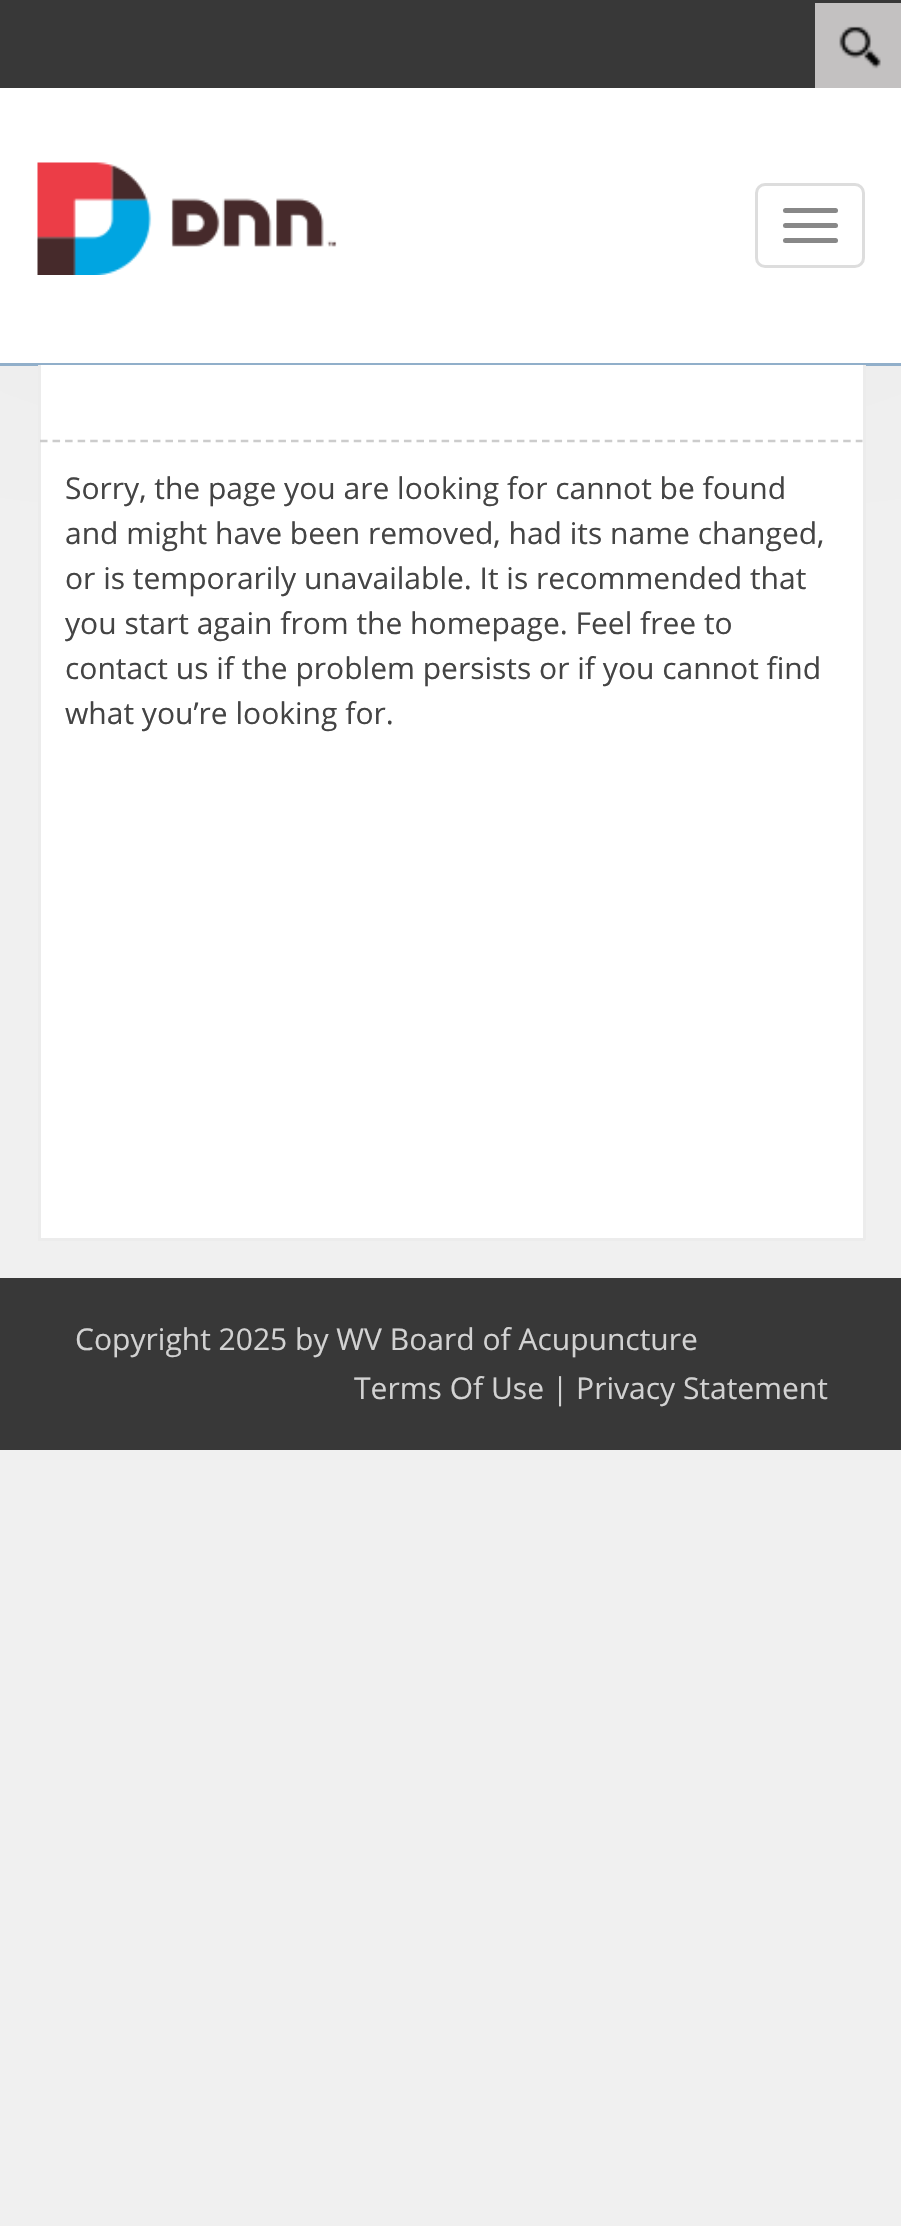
void draw(SkCanvas* c) {
SkPaint p;
p.setAntiAlias(true);
auto F=[&](const char* family, int weight, float size, bool italic = false){SkFontStyle style(weight, SkFontStyle::kNormal_Width,italic ? SkFontStyle::kItalic_Slant : SkFontStyle::kUpright_Slant);SkFont result(fontMgr->matchFamilyStyle(family, style), size);result.setSubpixel(true);return result;};
auto T=[&](const char* s, float x, float y, const SkFont& font){c->drawString(s, x, y, font, p);};
auto R=[&](float x, float y, float w, float h){c->drawRect(SkRect::MakeXYWH(x, y, w, h), p);};
auto Q=[&](float x, float y, float w, float h, float radius){c->drawRoundRect(SkRect::MakeXYWH(x, y, w, h), radius, radius, p);};
auto I=[&](const char* path, float x, float y, float w, float h){auto image = SkImages::DeferredFromEncodedData(SkData::MakeFromFileName(path));c->drawImageRect(image, SkRect::MakeXYWH(x, y, w, h), SkSamplingOptions());};
auto P=[&](const char* data, bool evenOdd = false){SkPath result = *SkParsePath::FromSVGString(data);if (evenOdd) result.setFillType(SkPathFillType::kEvenOdd);return result;};
c->clear(0xfff0f0f0);
p.setColor(0xffcacaca);
p.setMaskFilter(SkMaskFilter::MakeBlur(kNormal_SkBlurStyle, 125));
c->drawRect(SkRect::MakeXYWH(3,125,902,88),p);
p.setMaskFilter(nullptr);
p.setColor(0xff383838);
R(0,0,901,88);
p.setColor(0xffc3c1c1);
R(815,3,86,85);
I("1.png",839,26,42,43);
p.setColor(0xffffffff);
R(0,88,901,275);
p.setColor(0xff91afca);
R(0,363,901,3);
I("2.png",37,162,300,113);
p.setStroke(true);
p.setStrokeWidth(3);
p.setColor(0xffdddddd);
c->drawRoundRect(SkRect::MakeXYWH(756.5,184.5,107,82),8.5,8.5,p);
p.setStroke(false);
p.setColor(0xff888888);
Q(783,208,55,5,2.5);
Q(783,223,55,5,2.5);
Q(783,238,55,5,2.5);
p.setColor(0xffffffff);
R(41,365,822,873);
p.setColor(0xffececec);
R(863,365,3,875);
R(38,1238,827,3);
R(38,365,3,875);
p.setStroke(true);
p.setStrokeWidth(2.5);
p.setColor(0xffcccccc);
p.setPathEffect(SkDashPathEffect::Make({{7.5f,5.05f}}, 0));
c->drawPath(P("M40 441h822.5"),p);
p.setPathEffect(nullptr);
auto f1 = F("Open Sans",400,30);
p.setStroke(false);
p.setColor(0xff444444);
T("Sorry, the page you are looking for cannot be found",65,499,f1);
T("and might have been removed, had its name changed,",65,544,f1);
T("or is temporarily unavailable. It is recommended that",65,589,f1);
T("you start again from the homepage. Feel free to",65,634,f1);
T("contact us if the problem persists or if you cannot find",65,679,f1);
T("what you’re looking for.",65,724,f1);
p.setColor(0xff383838);
R(0,1278,901,172);
p.setColor(0xffd2d2d2);
T("Copyright 2025 by WV Board of Acupuncture",75,1350,f1);
T("Terms Of Use | Privacy Statement",354,1399,f1);
}
